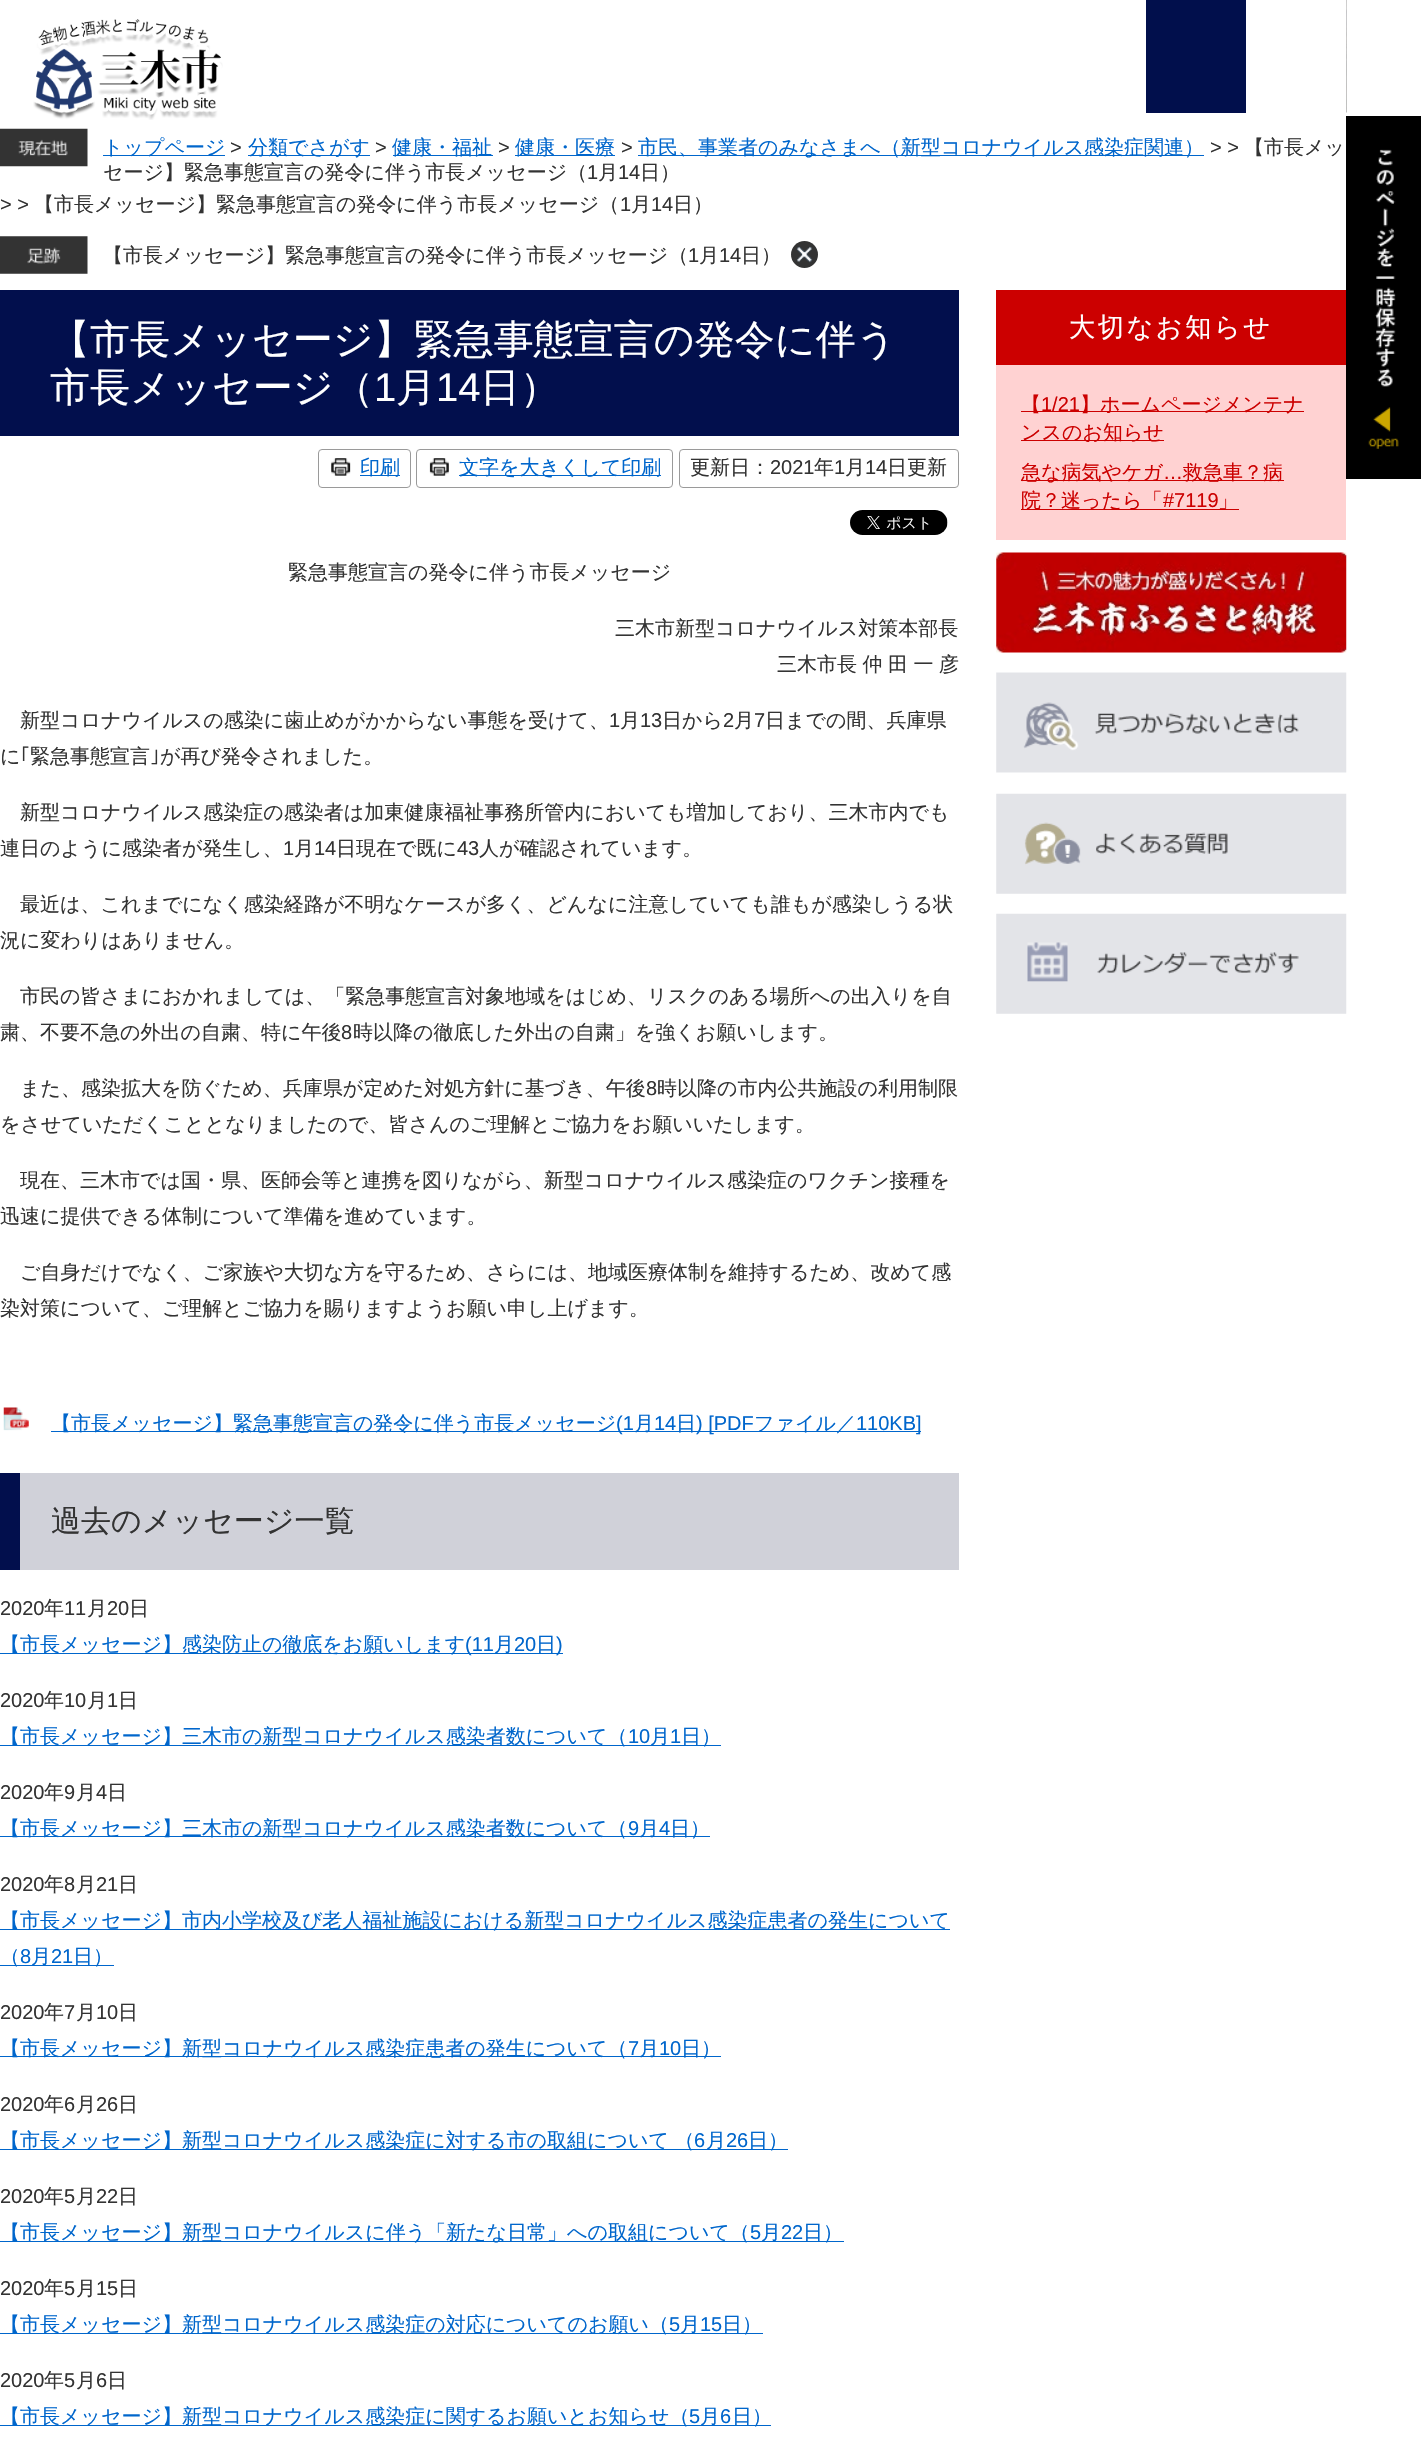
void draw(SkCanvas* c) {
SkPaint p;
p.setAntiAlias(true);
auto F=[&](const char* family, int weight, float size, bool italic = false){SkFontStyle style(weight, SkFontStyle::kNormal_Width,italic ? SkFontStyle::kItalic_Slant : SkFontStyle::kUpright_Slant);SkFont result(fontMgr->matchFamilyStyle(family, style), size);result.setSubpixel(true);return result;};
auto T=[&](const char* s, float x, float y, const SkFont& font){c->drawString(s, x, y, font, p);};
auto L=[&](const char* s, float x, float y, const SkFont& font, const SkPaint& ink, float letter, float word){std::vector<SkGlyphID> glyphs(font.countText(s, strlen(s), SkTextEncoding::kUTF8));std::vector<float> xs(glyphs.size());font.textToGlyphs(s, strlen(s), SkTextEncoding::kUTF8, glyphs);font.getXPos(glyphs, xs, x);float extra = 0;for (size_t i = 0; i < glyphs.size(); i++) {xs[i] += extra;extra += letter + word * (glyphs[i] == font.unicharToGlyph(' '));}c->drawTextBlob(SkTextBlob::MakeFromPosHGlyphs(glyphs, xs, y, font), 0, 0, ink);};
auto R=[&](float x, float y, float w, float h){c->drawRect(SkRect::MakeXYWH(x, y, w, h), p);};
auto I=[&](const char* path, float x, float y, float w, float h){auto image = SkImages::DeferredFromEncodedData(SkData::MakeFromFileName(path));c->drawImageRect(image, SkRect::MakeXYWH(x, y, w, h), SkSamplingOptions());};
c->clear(0xffffffff);
I("1.png",1346,0,1,113);
I("2.png",33,19,190,101);
p.setColor(0xff010f4c);
R(1146,0,100,113);
I("3.png",0,128,88,39);
p.setColor(0xff0066cc);
R(103,155,122,1);
auto f1 = F("WenQuanYi Zen Hei",500,20);
T("トップページ",103,154,f1);
auto f2 = F("Liberation Sans",400,20);
p.setColor(0xff333333);
T(">",230,154,f2);
p.setColor(0xff0066cc);
R(248,155,122,1);
T("分類でさがす",248,154,f1);
p.setColor(0xff333333);
T(">",375,154,f2);
p.setColor(0xff0066cc);
R(393,155,100,1);
T("健康・福祉",392,154,f1);
p.setColor(0xff333333);
T(">",498,154,f2);
p.setColor(0xff0066cc);
R(515,155,100,1);
T("健康・医療",515,154,f1);
p.setColor(0xff333333);
T(">",621,154,f2);
p.setColor(0xff0066cc);
R(638,155,566,1);
T("市民、事業者のみなさまへ（新型コロナウイルス感染症関連）",638,154,f1);
p.setColor(0xff333333);
T("> >",1210,154,f2);
T("【市長メッ",1244,154,f1);
T("セージ】緊急事態宣言の発令に伴う市長メッセージ（",103,179,f1);
T("1",587,179,f2);
T("月",598,179,f1);
T("14",618,179,f2);
T("日）",640,179,f1);
T("> >",0,211,f2);
T("【市長メッセージ】緊急事態宣言の発令に伴う市長メッセージ（",34,211,f1);
T("1",620,211,f2);
T("月",631,211,f1);
T("14",651,211,f2);
T("日）",673,211,f1);
I("4.png",0,236,88,38);
T("【市長メッセージ】緊急事態宣言の発令に伴う市長メッセージ（",103,262,f1);
T("1",688,262,f2);
T("月",699,262,f1);
T("14",719,262,f2);
T("日）",741,262,f1);
c->drawCircle(804.5,254.5,13.5,p);
I("5.png",796,246,17,17);
p.setColor(0xff020f4d);
R(0,290,959,146);
auto f3 = F("WenQuanYi Zen Hei",500,40);
p.setColor(0xffffffff);
T("【市長メッセージ】緊急事態宣言の発令に伴う",50,353,f3);
T("市長メッセージ（",50,401,f3);
auto f4 = F("Liberation Sans",400,40);
T("1",374,401,f4);
T("月",396,401,f3);
T("14",436,401,f4);
T("日）",480,401,f3);
p.setStroke(true);
p.setStrokeWidth(1);
p.setColor(0xff9a9a9a);
c->drawRoundRect(SkRect::MakeXYWH(318.5,449.5,92,38),3.5,3.5,p);
I("6.png",331,458,20,18);
p.setStroke(false);
p.setColor(0xff0066cc);
R(360,475,40,1);
T("印刷",360,474,f1);
p.setStroke(true);
p.setColor(0xff9a9a9a);
c->drawRoundRect(SkRect::MakeXYWH(416.5,449.5,256,38),3.5,3.5,p);
I("7.png",429,458,20,18);
p.setStroke(false);
p.setColor(0xff0066cc);
R(459,475,202,1);
T("文字を大きくして印刷",459,474,f1);
p.setStroke(true);
p.setColor(0xff9a9a9a);
c->drawRoundRect(SkRect::MakeXYWH(679.5,449.5,279,38),3.5,3.5,p);
p.setStroke(false);
p.setColor(0xff333333);
T("更新日：",690,474,f1);
T("2021",770,474,f2);
T("年",814,474,f1);
T("1",834,474,f2);
T("月",845,474,f1);
T("14",865,474,f2);
T("日更新",887,474,f1);
I("8.png",850,510,98,25);
T("緊急事態宣言の発令に伴う市長メッセージ",288,579,f1);
T("三木市新型コロナウイルス対策本部長",615,635,f1);
L("三木市長 仲 田 一 彦",777,671,f1,p,0,-.5);
T("新型コロナウイルスの感染に歯止めがかからない事態を受けて、",20,727,f1);
T("1",609,727,f2);
T("月",620,727,f1);
T("13",640,727,f2);
T("日から",662,727,f1);
T("2",723,727,f2);
T("月",734,727,f1);
T("7",754,727,f2);
T("日までの間、兵庫県",765,727,f1);
T("に",0,763,f1);
auto f5 = F("IPAPGothic",400,20);
T("｢",20,763,f5);
T("緊急事態宣言",30,763,f1);
T("｣",150,763,f5);
T("が再び発令されました。",160,763,f1);
T("新型コロナウイルス感染症の感染者は加東健康福祉事務所管内においても増加しており、三木市内でも",20,819,f1);
T("連日のように感染者が発生し、",0,855,f1);
T("1",283,855,f2);
T("月",294,855,f1);
T("14",314,855,f2);
T("日現在で既に",336,855,f1);
T("43",457,855,f2);
T("人が確認されています。",479,855,f1);
T("最近は、これまでになく感染経路が不明なケースが多く、どんなに注意していても誰もが感染しうる状",20,911,f1);
T("況に変わりはありません。",0,947,f1);
T("市民の皆さまにおかれましては、「緊急事態宣言対象地域をはじめ、リスクのある場所への出入りを自",20,1003,f1);
T("粛、不要不急の外出の自粛、特に午後",0,1039,f1);
T("8",341,1039,f2);
T("時以降の徹底した外出の自粛」を強くお願いします。",353,1039,f1);
T("また、感染拡大を防ぐため、兵庫県が定めた対処方針に基づき、午後",20,1095,f1);
T("8",646,1095,f2);
T("時以降の市内公共施設の利用制限",657,1095,f1);
T("をさせていただくこととなりましたので、皆さんのご理解とご協力をお願いいたします。",0,1131,f1);
T("現在、三木市では国・県、医師会等と連携を図りながら、新型コロナウイルス感染症のワクチン接種を",20,1187,f1);
T("迅速に提供できる体制について準備を進めています。",0,1223,f1);
T("ご自身だけでなく、ご家族や大切な方を守るため、さらには、地域医療体制を維持するため、改めて感",20,1279,f1);
T("染対策について、ご理解とご協力を賜りますようお願い申し上げます。",0,1315,f1);
I("9.png",3,1407,26,24);
p.setColor(0xff0066cc);
R(51,1431,870,1);
T("【市長メッセージ】緊急事態宣言の発令に伴う市長メッセージ",51,1430,f1);
T("(1",616,1430,f2);
T("月",634,1430,f1);
T("14",654,1430,f2);
T("日",676,1430,f1);
T(") [PDF",696,1430,f2);
T("ファイル／",754,1430,f1);
T("110KB]",856,1430,f2);
p.setColor(0xffd0d1d9);
R(20,1473,939,97);
p.setColor(0xff020f4d);
R(0,1473,20,97);
auto f6 = F("WenQuanYi Zen Hei",500,30);
p.setColor(0xff333333);
T("過去のメッセージ一覧",51,1531,f6);
T("2020",0,1615,f2);
T("年",44,1615,f1);
T("11",64,1615,f2);
T("月",87,1615,f1);
T("20",107,1615,f2);
T("日",129,1615,f1);
p.setColor(0xff0066cc);
R(0,1653,563,1);
T("【市長メッセージ】感染防止の徹底をお願いします",0,1651,f1);
T("(11",465,1651,f2);
T("月",494,1651,f1);
T("20",514,1651,f2);
T("日",536,1651,f1);
T(")",556,1651,f2);
p.setColor(0xff333333);
T("2020",0,1707,f2);
T("年",44,1707,f1);
T("10",64,1707,f2);
T("月",87,1707,f1);
T("1",107,1707,f2);
T("日",118,1707,f1);
p.setColor(0xff0066cc);
R(0,1745,721,1);
T("【市長メッセージ】三木市の新型コロナウイルス感染者数について（",0,1743,f1);
T("10",628,1743,f2);
T("月",650,1743,f1);
T("1",670,1743,f2);
T("日）",681,1743,f1);
p.setColor(0xff333333);
T("2020",0,1799,f2);
T("年",44,1799,f1);
T("9",64,1799,f2);
T("月",76,1799,f1);
T("4",96,1799,f2);
T("日",107,1799,f1);
p.setColor(0xff0066cc);
R(0,1836,710,1);
T("【市長メッセージ】三木市の新型コロナウイルス感染者数について（",0,1835,f1);
T("9",628,1835,f2);
T("月",639,1835,f1);
T("4",659,1835,f2);
T("日）",670,1835,f1);
p.setColor(0xff333333);
T("2020",0,1891,f2);
T("年",44,1891,f1);
T("8",64,1891,f2);
T("月",76,1891,f1);
T("21",96,1891,f2);
T("日",118,1891,f1);
p.setColor(0xff0066cc);
R(0,1929,950,1);
T("【市長メッセージ】市内小学校及び老人福祉施設における新型コロナウイルス感染症患者の発生について",0,1927,f1);
R(0,1965,114,1);
T("（",0,1963,f1);
T("8",20,1963,f2);
T("月",31,1963,f1);
T("21",51,1963,f2);
T("日）",73,1963,f1);
p.setColor(0xff333333);
T("2020",0,2019,f2);
T("年",44,2019,f1);
T("7",64,2019,f2);
T("月",76,2019,f1);
T("10",96,2019,f2);
T("日",118,2019,f1);
p.setColor(0xff0066cc);
R(0,2056,721,1);
T("【市長メッセージ】新型コロナウイルス感染症患者の発生について（",0,2055,f1);
T("7",628,2055,f2);
T("月",639,2055,f1);
T("10",659,2055,f2);
T("日）",681,2055,f1);
p.setColor(0xff333333);
T("2020",0,2111,f2);
T("年",44,2111,f1);
T("6",64,2111,f2);
T("月",76,2111,f1);
T("26",96,2111,f2);
T("日",118,2111,f1);
p.setColor(0xff0066cc);
R(0,2149,788,1);
L("【市長メッセージ】新型コロナウイルス感染症に対する市の取組について （",0,2147,f1,p,0,-.5);
T("6",694,2147,f2);
T("月",706,2147,f1);
T("26",726,2147,f2);
T("日）",748,2147,f1);
p.setColor(0xff333333);
T("2020",0,2203,f2);
T("年",44,2203,f1);
T("5",64,2203,f2);
T("月",76,2203,f1);
T("22",96,2203,f2);
T("日",118,2203,f1);
p.setColor(0xff0066cc);
R(0,2241,844,1);
T("【市長メッセージ】新型コロナウイルスに伴う「新たな日常」への取組について（",0,2239,f1);
T("5",750,2239,f2);
T("月",761,2239,f1);
T("22",781,2239,f2);
T("日）",803,2239,f1);
p.setColor(0xff333333);
T("2020",0,2295,f2);
T("年",44,2295,f1);
T("5",64,2295,f2);
T("月",76,2295,f1);
T("15",96,2295,f2);
T("日",118,2295,f1);
p.setColor(0xff0066cc);
R(0,2333,763,1);
T("【市長メッセージ】新型コロナウイルス感染症の対応についてのお願い（",0,2331,f1);
T("5",669,2331,f2);
T("月",680,2331,f1);
T("15",700,2331,f2);
T("日）",722,2331,f1);
p.setColor(0xff333333);
T("2020",0,2387,f2);
T("年",44,2387,f1);
T("5",64,2387,f2);
T("月",76,2387,f1);
T("6",96,2387,f2);
T("日",107,2387,f1);
p.setColor(0xff0066cc);
R(0,2425,771,1);
T("【市長メッセージ】新型コロナウイルス感染症に関するお願いとお知らせ（",0,2423,f1);
T("5",689,2423,f2);
T("月",700,2423,f1);
T("6",720,2423,f2);
T("日）",732,2423,f1);
p.setColor(0xffffd2d2);
R(996,365,350,175);
p.setColor(0xffcc0000);
R(996,290,350,75);
auto f7 = F("WenQuanYi Zen Hei",500,26.25);
p.setColor(0xffffffff);
L("大切なお知らせ",1069,336,f7,p,2.5,0);
p.setColor(0xffcc0000);
R(1021,411,283,1);
T("【",1021,411,f1);
T("1/21",1041,411,f2);
T("】ホームページメンテナ",1080,411,f1);
R(1021,440,143,1);
T("ンスのお知らせ",1021,439,f1);
R(1021,480,263,1);
T("急な病気やケガ",1021,479,f1);
T("…",1163,479,f2);
T("救急車？病",1183,479,f1);
R(1021,509,218,1);
T("院？迷ったら「",1021,507,f1);
T("#7119",1163,507,f2);
T("」",1218,507,f1);
I("10.png",996,552,351,101);
I("11.png",996,672,351,101);
I("12.png",996,793,351,101);
I("13.png",996,913,351,101);
p.setColor(0xff000000);
R(1346,116,75,363);
I("14.png",1368,149,31,300);
}
